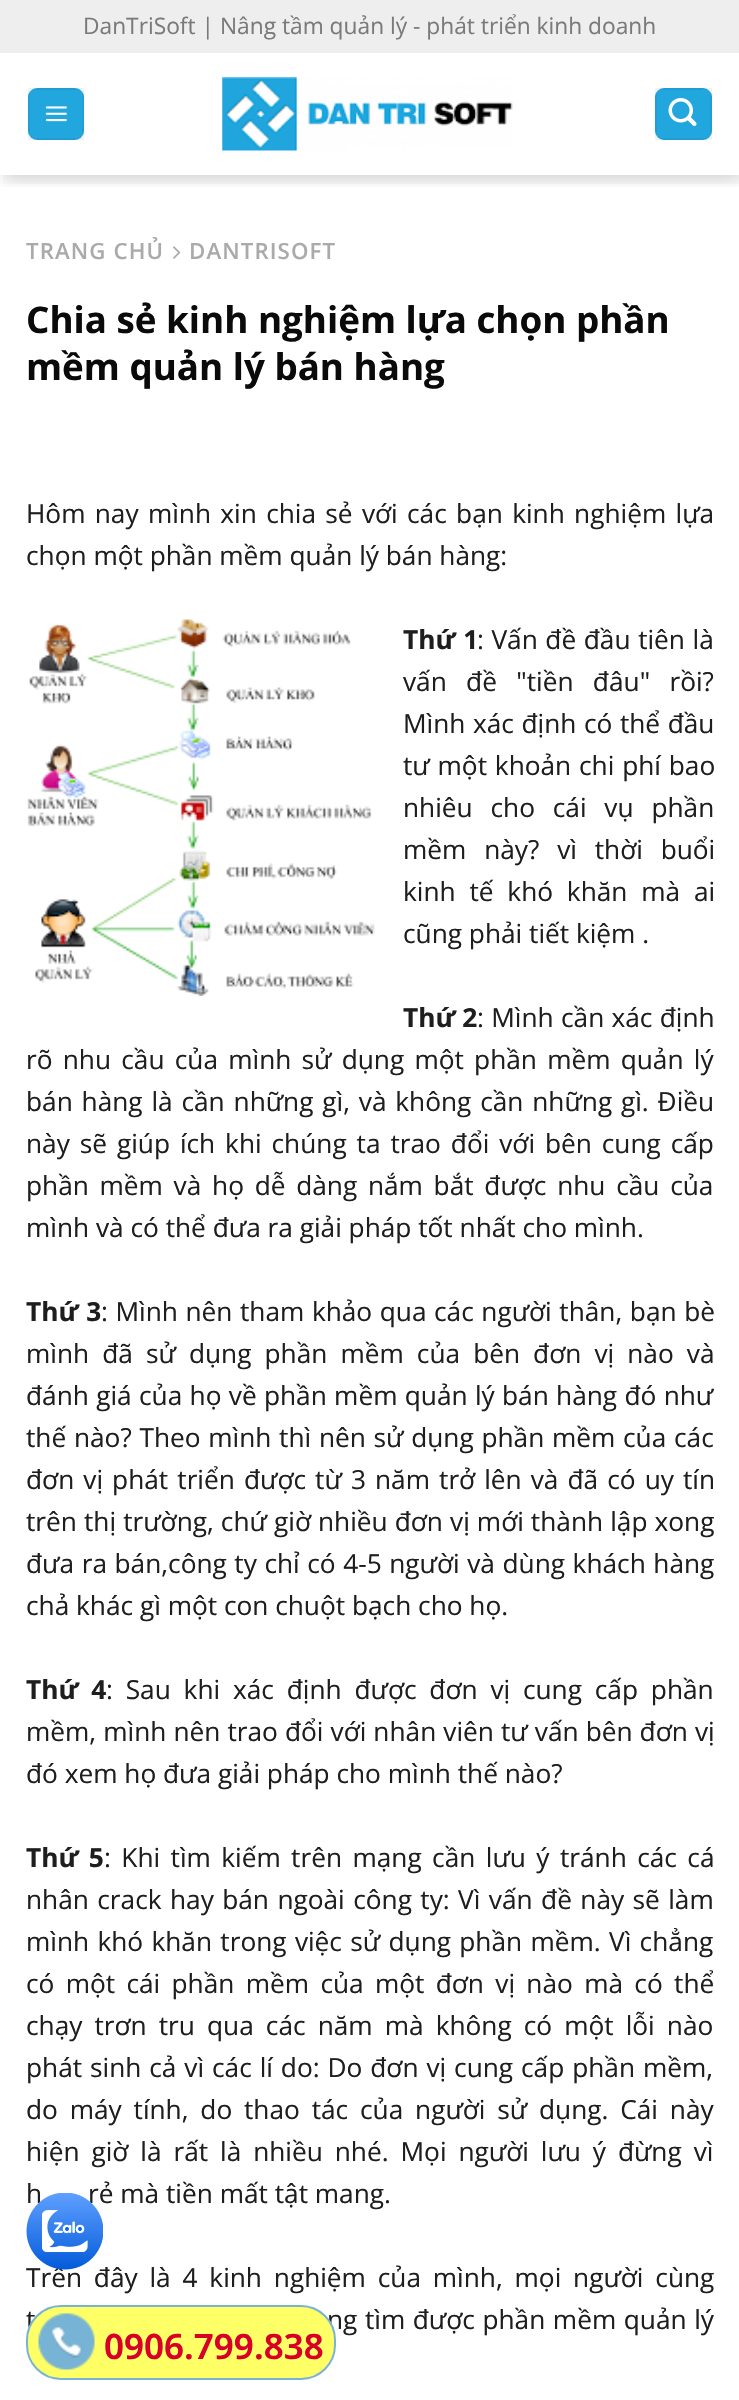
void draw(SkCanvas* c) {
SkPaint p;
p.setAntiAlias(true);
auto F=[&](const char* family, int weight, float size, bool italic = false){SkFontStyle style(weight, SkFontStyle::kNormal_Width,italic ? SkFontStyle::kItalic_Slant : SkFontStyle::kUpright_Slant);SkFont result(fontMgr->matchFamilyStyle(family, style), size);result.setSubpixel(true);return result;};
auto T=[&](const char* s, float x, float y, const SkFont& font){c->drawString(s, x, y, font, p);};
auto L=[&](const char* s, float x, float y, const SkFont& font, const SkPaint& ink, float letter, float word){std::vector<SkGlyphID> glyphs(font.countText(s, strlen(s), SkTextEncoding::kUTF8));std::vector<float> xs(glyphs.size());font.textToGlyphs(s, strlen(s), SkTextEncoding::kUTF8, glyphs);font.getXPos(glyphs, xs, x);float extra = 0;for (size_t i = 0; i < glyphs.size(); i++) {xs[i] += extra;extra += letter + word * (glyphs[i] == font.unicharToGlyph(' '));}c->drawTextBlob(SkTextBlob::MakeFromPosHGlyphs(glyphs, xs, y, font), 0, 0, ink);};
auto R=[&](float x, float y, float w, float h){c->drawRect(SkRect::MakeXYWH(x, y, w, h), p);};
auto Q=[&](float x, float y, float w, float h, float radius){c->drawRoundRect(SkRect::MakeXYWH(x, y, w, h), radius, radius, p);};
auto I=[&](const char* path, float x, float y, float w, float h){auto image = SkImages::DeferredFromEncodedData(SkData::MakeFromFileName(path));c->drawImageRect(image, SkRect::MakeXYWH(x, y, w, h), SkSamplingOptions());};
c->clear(0xffffffff);
c->save();
c->clipRect(SkRect::MakeXYWH(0,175,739,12));
p.setColor(0x26000000);
p.setMaskFilter(SkMaskFilter::MakeBlur(kNormal_SkBlurStyle, 9));
c->drawRect(SkRect::MakeXYWH(2,2,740,175),p);
p.setMaskFilter(nullptr);
c->restore();
c->save();
c->clipRect(SkRect::MakeXYWH(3,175,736,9));
p.setColor(0x12000000);
p.setMaskFilter(SkMaskFilter::MakeBlur(kNormal_SkBlurStyle, 9));
c->drawRect(SkRect::MakeXYWH(4,56,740,123),p);
p.setMaskFilter(nullptr);
c->restore();
p.setColor(0xffeeeeee);
R(0,0,739,53);
auto f1 = F("Open Sans",400,22.75);
p.setColor(0xff7a7a7a);
T("DanTriSoft | Nâng tầm quản lý - phát triển kinh doanh",83,34,f1);
p.setColor(0xff21a6de);
Q(28,88,56,52,9);
p.setStroke(true);
p.setStrokeWidth(2);
p.setColor(0x0d000000);
c->drawRect(SkRect::MakeXYWH(29,89,54,50),p);
I("1.png",45,106,22,16);
I("2.png",222,77,291,74);
p.setStroke(false);
p.setColor(0xff21a6de);
Q(655,88,57,52,9);
p.setStroke(true);
p.setColor(0x0d000000);
c->drawRect(SkRect::MakeXYWH(656,89,55,50),p);
I("3.png",668,98,29,28);
auto f2 = F("Open Sans",600,22.25);
p.setStroke(false);
p.setColor(0xffaaaaaa);
L("TRANG CHỦ",26,259,f2,p,1.1,0);
I("4.png",173,246,8,13);
L("DANTRISOFT",189,259,f2,p,1.1,0);
auto f3 = F("Open Sans",700,36.75);
p.setColor(0xff0a0a0a);
T("Chia sẻ kinh nghiệm lựa chọn phần",26,333,f3);
T("mềm quản lý bán hàng",26,380,f3);
auto f4 = F("Open Sans",400,26.25);
p.setColor(0xff1e1e1e);
L("Hôm nay mình xin chia sẻ với các bạn kinh nghiệm lựa",26,523,f4,p,0,2.5);
T("chọn một phần mềm quản lý bán hàng:",26,565,f4);
I("5.png",27,619,348,377);
auto f5 = F("Open Sans",700,26.25);
L("Thứ 1",403,649,f5,p,0,1);
L(": Vấn đề đầu tiên là",477,649,f4,p,0,.75);
L("vấn đề \"tiền đâu\" rồi?",403,691,f4,p,0,12.5);
L("Mình xác định có thể đầu",403,733,f4,p,0,.75);
L("tư một khoản chi phí bao",403,775,f4,p,0,1);
L("nhiêu cho cái vụ phần",403,817,f4,p,0,11);
L("mềm này? vì thời buổi",403,859,f4,p,0,11);
L("kinh tế khó khăn mà ai",403,901,f4,p,0,7);
T("cũng phải tiết kiệm .",403,943,f4);
T("Thứ 2",403,1027,f5);
L(": Mình cần xác định",477,1027,f4,p,0,.5);
L("rõ nhu cầu của mình sử dụng một phần mềm quản lý",26,1069,f4,p,0,3.4);
L("bán hàng là cần những gì, và không cần những gì. Điều",26,1111,f4,p,0,2);
L("này sẽ giúp ích khi chúng ta trao đổi với bên cung cấp",26,1153,f4,p,0,3.1);
L("phần mềm và họ dễ dàng nắm bắt được nhu cầu của",26,1195,f4,p,0,3.9);
T("mình và có thể đưa ra giải pháp tốt nhất cho mình.",26,1237,f4);
L("Thứ 3",26,1321,f5,p,0,1);
L(": Mình nên tham khảo qua các người thân, bạn bè",101,1321,f4,p,0,.75);
L("mình đã sử dụng phần mềm của bên đơn vị nào và",26,1363,f4,p,0,6.25);
L("đánh giá của họ về phần mềm quản lý bán hàng đó như",26,1405,f4,p,0,.5);
L("thế nào? Theo mình thì nên sử dụng phần mềm của các",26,1447,f4,p,0,.9);
L("đơn vị phát triển được từ 3 năm trở lên và đã có uy tín",26,1489,f4,p,0,2.25);
L("trên thị trường, chứ giờ nhiều đơn vị mới thành lập xong",26,1531,f4,p,0,.25);
L("đưa ra bán,công ty chỉ có 4-5 người và dùng khách hàng",26,1573,f4,p,0,.75);
T("chả khác gì một con chuột bạch cho họ.",26,1615,f4);
L("Thứ 4",26,1699,f5,p,0,6);
L(": Sau khi xác định được đơn vị cung cấp phần",106,1699,f4,p,0,6);
L("mềm, mình nên trao đổi với nhân viên tư vấn bên đơn vị",26,1741,f4,p,0,.25);
T("đó xem họ đưa giải pháp cho mình thế nào?",26,1783,f4);
L("Thứ 5",26,1867,f5,p,0,3.6);
L(": Khi tìm kiếm trên mạng cần lưu ý tránh các cá",104,1867,f4,p,0,3.6);
L("nhân crack hay bán ngoài công ty: Vì vấn đề này sẽ làm",26,1909,f4,p,0,1.6);
L("mình khó khăn trong việc sử dụng phần mềm. Vì chẳng",26,1951,f4,p,0,1.5);
L("có một cái phần mềm của một đơn vị nào mà có thể",26,1993,f4,p,0,4.5);
L("chạy trơn tru qua các năm mà không có một lỗi nào",26,2035,f4,p,0,5.25);
L("phát sinh cả vì các lí do: Do đơn vị cung cấp phần mềm,",26,2077,f4,p,0,1.1);
L("do máy tính, do thao tác của người sử dụng. Cái này",26,2119,f4,p,0,5);
L("hiện giờ là rất là nhiều nhé. Mọi người lưu ý đừng vì",26,2161,f4,p,0,5.1);
T("h",26,2203,f4);
T("rẻ mà tiền mất tật mang.",88,2203,f4);
L("Trên đây là 4 kinh nghiệm của mình, mọi người cùng",26,2287,f4,p,0,5);
L("t",26,2329,f4,p,0,.75);
L("ng tìm được phần mềm quản lý",327,2329,f4,p,0,.75);
I("6.png",26,2193,77,77);
p.setColor(0xffffff66);
c->drawRoundRect(SkRect::MakeXYWH(27,2306,308,73),34,34,p);
p.setStroke(true);
p.setColor(0xff77b3d4);
c->drawRoundRect(SkRect::MakeXYWH(27,2306,308,73),34,34,p);
I("7.png",38,2313,57,57);
auto f6 = F("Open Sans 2",600,35);
p.setStroke(false);
p.setColor(0xffd80027);
T("0906.799.838",104,2359,f6);
}
